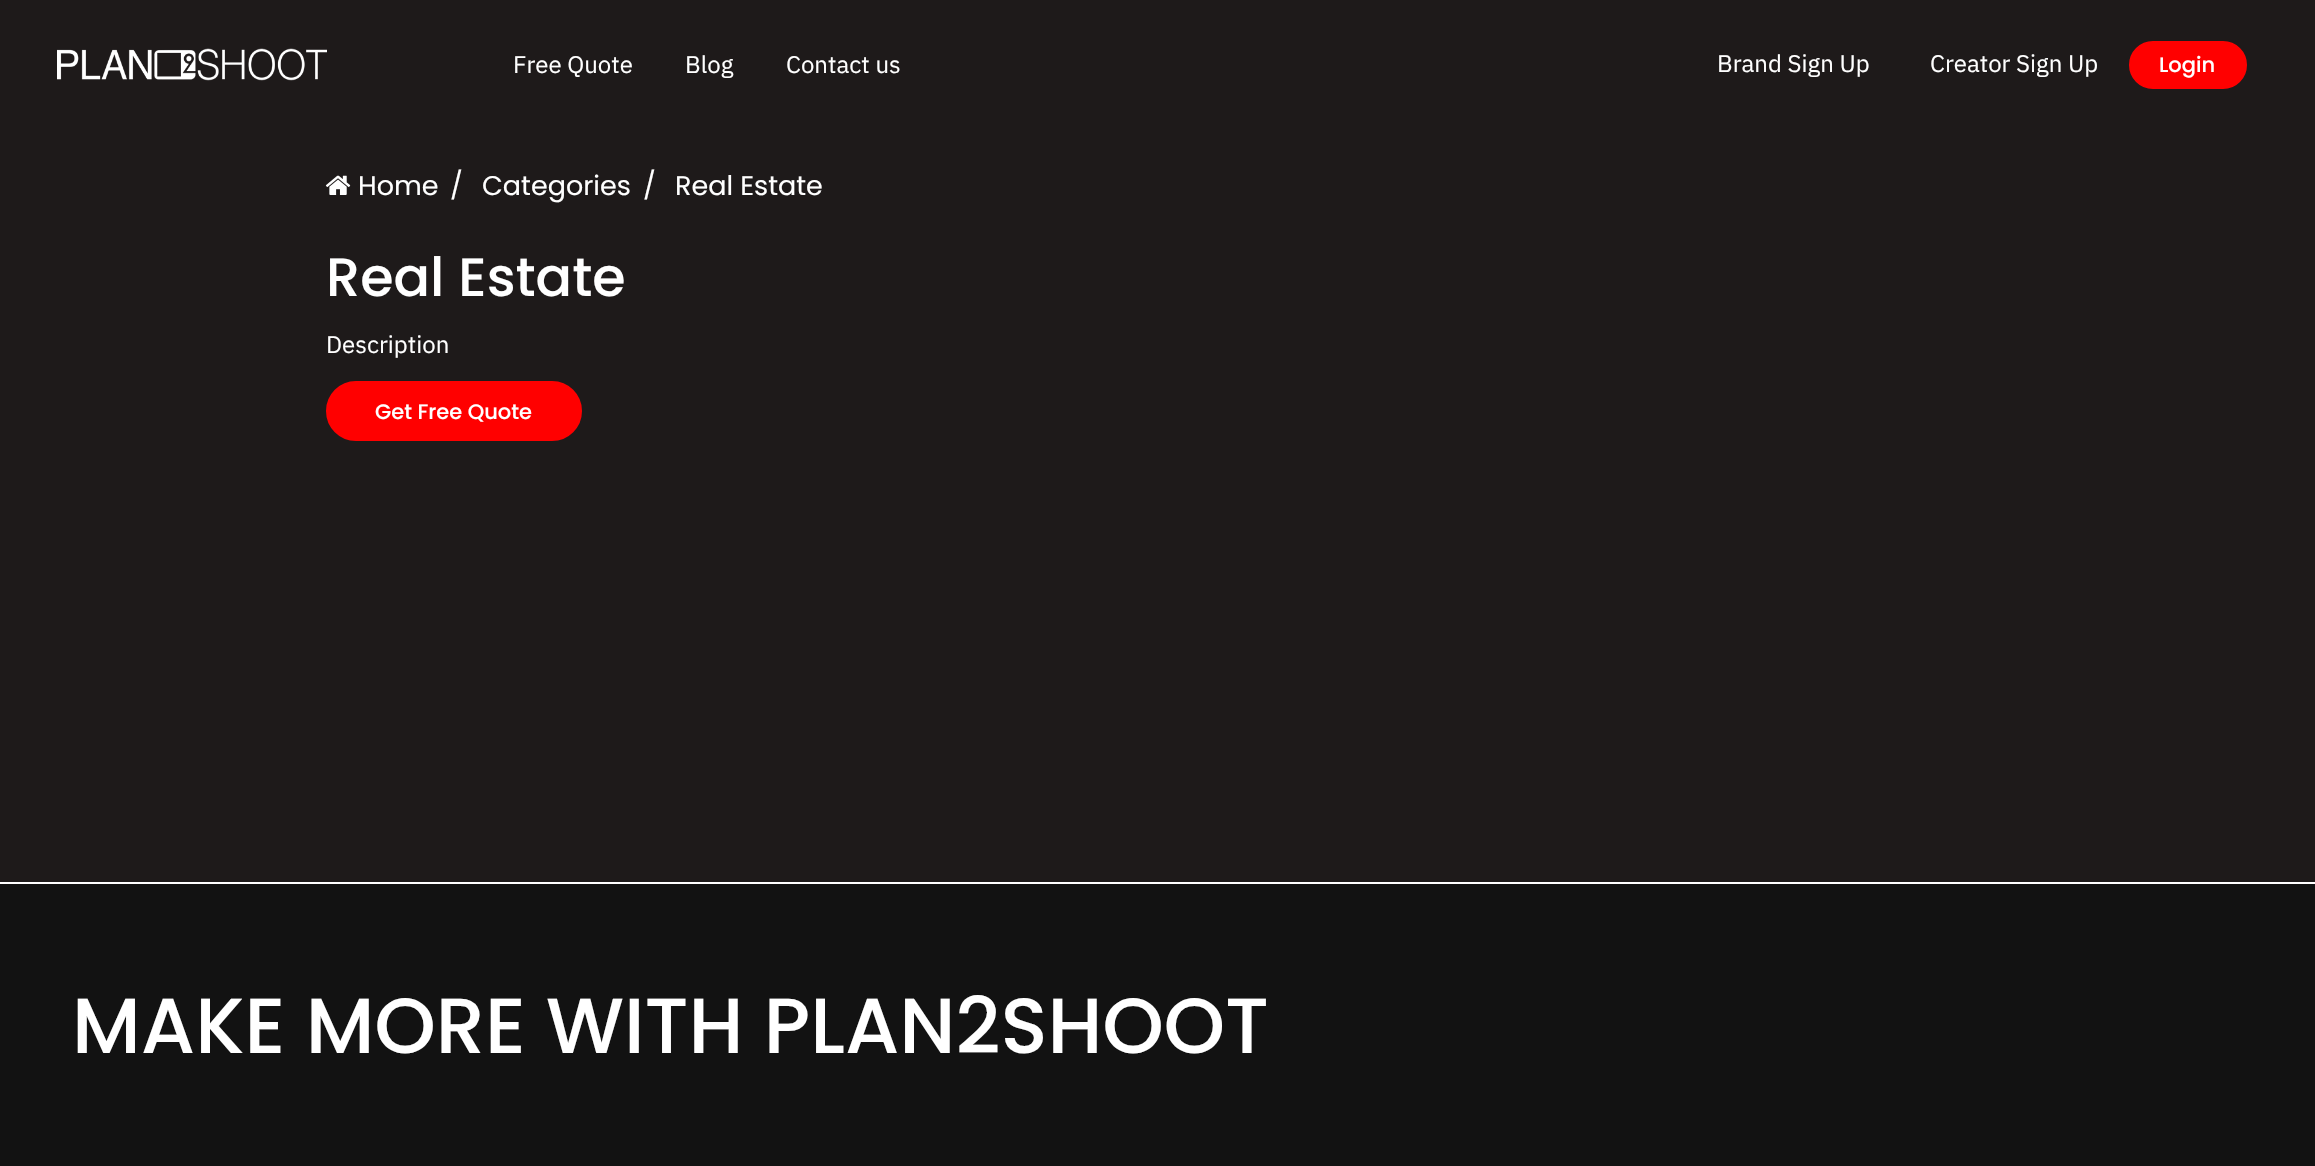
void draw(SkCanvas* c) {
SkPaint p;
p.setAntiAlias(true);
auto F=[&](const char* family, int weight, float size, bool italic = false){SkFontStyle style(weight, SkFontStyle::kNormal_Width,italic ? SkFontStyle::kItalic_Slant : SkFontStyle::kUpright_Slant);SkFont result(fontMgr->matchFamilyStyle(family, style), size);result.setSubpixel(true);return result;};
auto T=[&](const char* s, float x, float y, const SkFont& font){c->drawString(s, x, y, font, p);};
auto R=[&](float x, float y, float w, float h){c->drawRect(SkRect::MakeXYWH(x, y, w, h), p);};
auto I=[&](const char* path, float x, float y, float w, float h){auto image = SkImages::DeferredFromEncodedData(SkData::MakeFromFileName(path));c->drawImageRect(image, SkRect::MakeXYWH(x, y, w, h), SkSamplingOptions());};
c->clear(0xff1e1a1a);
I("1.png",57,48,270,33);
auto f1 = F("IBM Plex Sans",400,24);
p.setColor(0xffffffff);
T("Free Quote",513,73,f1);
T("Blog",685,73,f1);
T("Contact us",786,73,f1);
T("Brand Sign Up",1717,72,f1);
T("Creator Sign Up",1930,72,f1);
p.setColor(0xffff0000);
c->drawRoundRect(SkRect::MakeXYWH(2130,42,116,46),23,23,p);
p.setStroke(true);
p.setStrokeWidth(2);
c->drawRoundRect(SkRect::MakeXYWH(2130,42,116,46),23,23,p);
auto f2 = F("Poppins",500,21);
p.setStroke(false);
p.setColor(0xffffffff);
T("Login",2159,72,f2);
R(0,882,2315,2);
I("2.png",325,175,26,20);
auto f3 = F("Poppins",400,27);
T("Home",358,195,f3);
T("/",450,195,f3);
T("Categories",482,195,f3);
T("/",643,195,f3);
T("Real Estate",675,195,f3);
auto f4 = F("Poppins",500,54);
T("Real Estate",326,296,f4);
T("Description",326,353,f1);
p.setColor(0xffff0000);
c->drawRoundRect(SkRect::MakeXYWH(327,382,254,58),29,29,p);
p.setStroke(true);
c->drawRoundRect(SkRect::MakeXYWH(327,382,254,58),29,29,p);
p.setStroke(false);
p.setColor(0xffffffff);
T("Get Free Quote",375,419,f2);
p.setColor(0xff121212);
R(0,884,2315,282);
auto f5 = F("Poppins",500,78);
p.setColor(0xffffffff);
T("MAKE MORE WITH PLAN2SHOOT",72,1053,f5);
}
